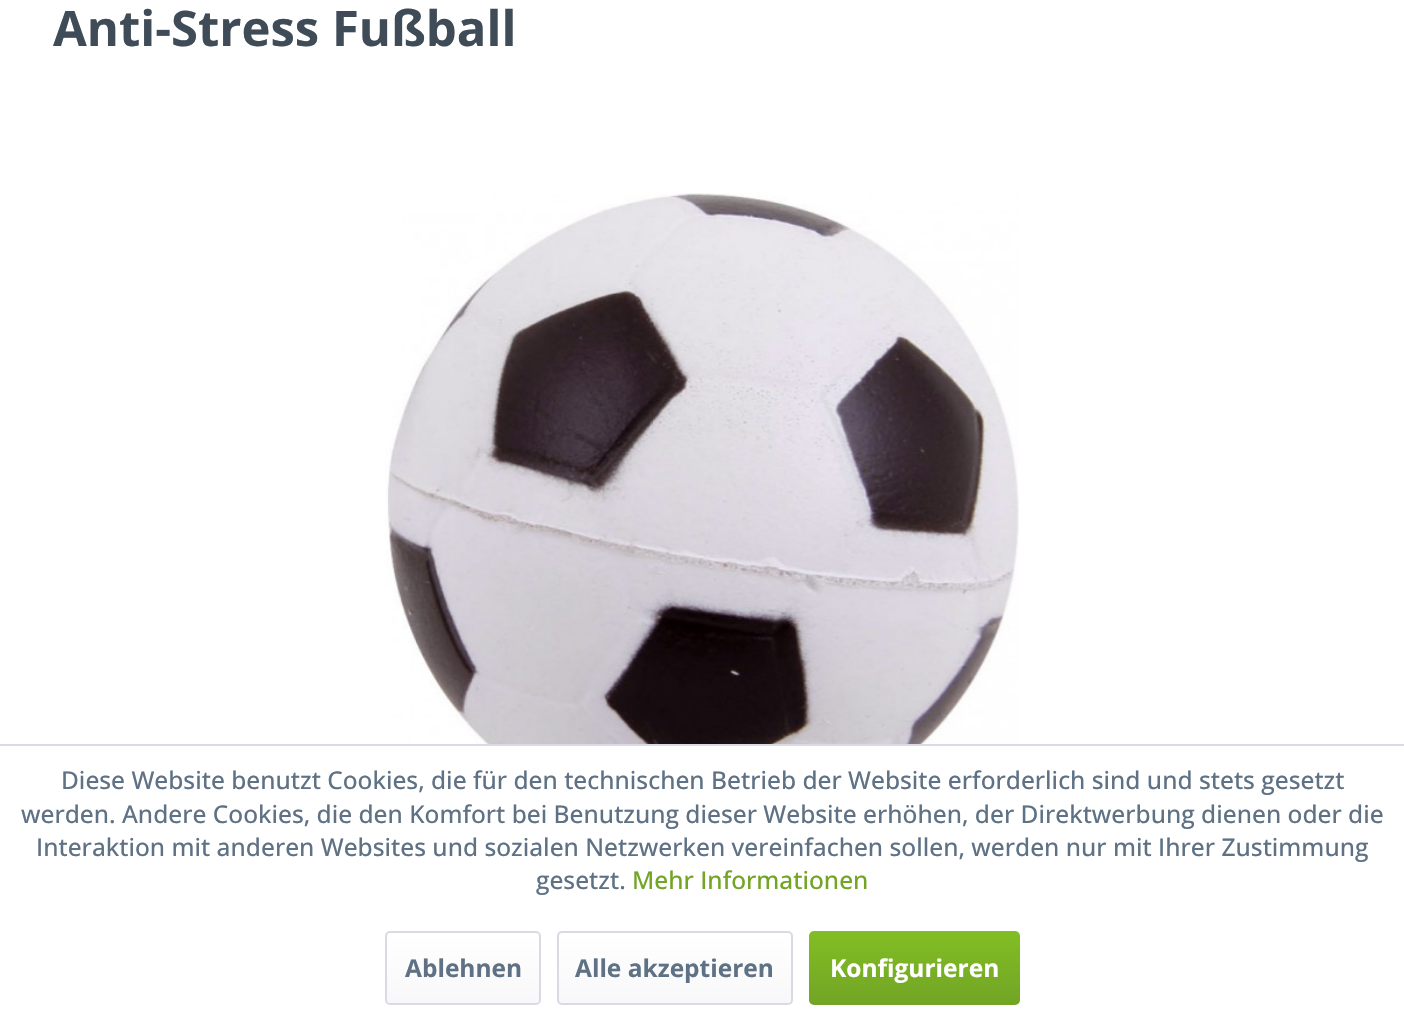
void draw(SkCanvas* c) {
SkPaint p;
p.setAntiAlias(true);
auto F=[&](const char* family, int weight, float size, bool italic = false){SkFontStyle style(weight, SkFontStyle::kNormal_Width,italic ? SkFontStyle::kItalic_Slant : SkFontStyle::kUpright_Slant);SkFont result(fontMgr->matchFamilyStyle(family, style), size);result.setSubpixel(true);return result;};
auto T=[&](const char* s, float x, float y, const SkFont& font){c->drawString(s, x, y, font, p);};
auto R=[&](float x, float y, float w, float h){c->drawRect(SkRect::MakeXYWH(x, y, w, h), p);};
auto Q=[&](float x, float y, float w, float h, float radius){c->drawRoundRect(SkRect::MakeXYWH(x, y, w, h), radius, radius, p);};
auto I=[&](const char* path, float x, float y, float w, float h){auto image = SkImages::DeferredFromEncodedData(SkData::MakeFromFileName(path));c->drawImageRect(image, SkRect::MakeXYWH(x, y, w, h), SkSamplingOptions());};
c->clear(0xffffffff);
auto f1 = F("Open Sans",700,49);
p.setColor(0xff3f4c58);
T("Anti-Stress Fußball",53,46,f1);
I("1.png",385,193,634,551);
p.setColor(0xffdadae5);
R(0,744,1404,2);
auto f2 = F("Open Sans",500,24.5);
p.setColor(0xff5f7285);
T("Diese Website benutzt Cookies, die für den technischen Betrieb der Website erforderlich sind und stets gesetzt",61,789,f2);
T("werden. Andere Cookies, die den Komfort bei Benutzung dieser Website erhöhen, der Direktwerbung dienen oder die",21,823,f2);
T("Interaktion mit anderen Websites und sozialen Netzwerken vereinfachen sollen, werden nur mit Ihrer Zustimmung",36,856,f2);
T("gesetzt.",536,889,f2);
p.setColor(0xff72a425);
T("Mehr Informationen",632,889,f2);
{
const SkColor colors[] = {0xffffffff,0xfff8f8fa};
const float stops[] = {0,1};
const SkPoint ends[] = {{463,933}, {463,1003}};
p.setShader(SkGradientShader::MakeLinear(ends, colors, stops, 2, SkTileMode::kClamp));
p.setAlpha(255);
}
Q(387,933,152,70,4);
p.setStroke(true);
p.setStrokeWidth(2);
p.setShader(nullptr);
p.setColor(0xffdadae5);
c->drawRoundRect(SkRect::MakeXYWH(386,932,154,72),4,4,p);
auto f3 = F("Open Sans",700,24.5);
p.setStroke(false);
p.setColor(0xff5f7285);
T("Ablehnen",405,977,f3);
{
const SkColor colors[] = {0xffffffff,0xfff8f8fa};
const float stops[] = {0,1};
const SkPoint ends[] = {{675,933}, {675,1003}};
p.setShader(SkGradientShader::MakeLinear(ends, colors, stops, 2, SkTileMode::kClamp));
p.setAlpha(255);
}
Q(558,933,233,70,4);
p.setStroke(true);
p.setShader(nullptr);
p.setColor(0xffdadae5);
c->drawRoundRect(SkRect::MakeXYWH(558,932,234,72),4,4,p);
p.setStroke(false);
p.setColor(0xff5f7285);
T("Alle akzeptieren",575,977,f3);
{
const SkColor colors[] = {0xff82be24,0xff72a425};
const float stops[] = {0,1};
const SkPoint ends[] = {{914,931}, {914,1005}};
p.setShader(SkGradientShader::MakeLinear(ends, colors, stops, 2, SkTileMode::kClamp));
p.setAlpha(255);
}
Q(809,931,211,74,5);
p.setShader(nullptr);
p.setColor(0xffffffff);
T("Konfigurieren",830,977,f3);
}
